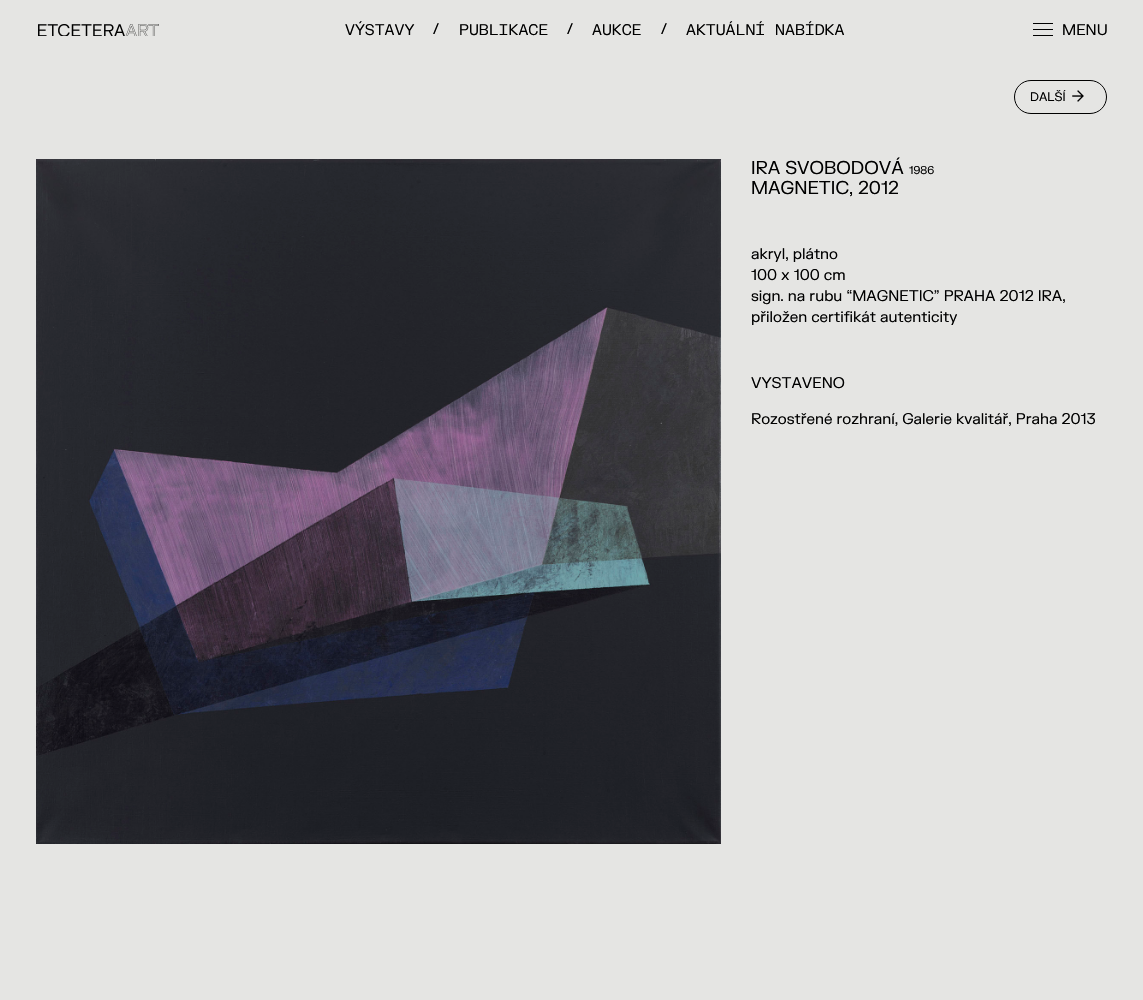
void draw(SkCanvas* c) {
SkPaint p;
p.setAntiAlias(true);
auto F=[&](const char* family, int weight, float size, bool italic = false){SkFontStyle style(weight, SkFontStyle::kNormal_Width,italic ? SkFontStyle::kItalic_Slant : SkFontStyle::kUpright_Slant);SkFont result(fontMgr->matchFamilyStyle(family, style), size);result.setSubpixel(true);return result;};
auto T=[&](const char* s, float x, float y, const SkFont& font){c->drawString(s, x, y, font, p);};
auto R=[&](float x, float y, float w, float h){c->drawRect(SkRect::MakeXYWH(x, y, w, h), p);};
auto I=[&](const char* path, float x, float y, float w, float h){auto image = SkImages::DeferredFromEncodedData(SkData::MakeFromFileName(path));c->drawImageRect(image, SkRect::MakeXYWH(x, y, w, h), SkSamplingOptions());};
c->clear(0xffe5e5e3);
I("1.png",38,24,121,12);
auto f1 = F("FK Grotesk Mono",400,15);
p.setColor(0xff000000);
T("VÝSTAVY",345,35,f1);
T("/",431,34,f1);
T("PUBLIKACE",459,35,f1);
T("/",565,34,f1);
T("AUKCE",592,35,f1);
T("/",659,34,f1);
T("AKTUÁLNÍ NABÍDKA",686,35,f1);
R(1033,23,20,1);
R(1033,29,20,1);
R(1033,35,20,1);
auto f2 = F("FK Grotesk",400,15);
T("MENU",1062,35,f2);
p.setStroke(true);
p.setStrokeWidth(1);
c->drawRoundRect(SkRect::MakeXYWH(1014.5,80.5,92,33),16.5,16.5,p);
auto f3 = F("FK Grotesk",400,12);
p.setStroke(false);
T("DALŠÍ",1030,101,f3);
I("2.png",1072,90,12,12);
I("3.png",36,159,685,685);
auto f4 = F("FK Grotesk",400,18);
T("IRA SVOBODOVÁ",751,174,f4);
auto f5 = F("FK Grotesk",400,11);
T("1986",909,174,f5);
T("MAGNETIC, 2012",751,194,f4);
T("akryl, plátno",751,259,f2);
T("100 x 100 cm",751,280,f2);
T("sign. na rubu “MAGNETIC” PRAHA 2012 IRA,",751,301,f2);
T("přiložen certifikát autenticity",751,322,f2);
T("VYSTAVENO",751,388,f2);
T("Rozostřené rozhraní, Galerie kvalitář, Praha 2013",751,424,f2);
}
